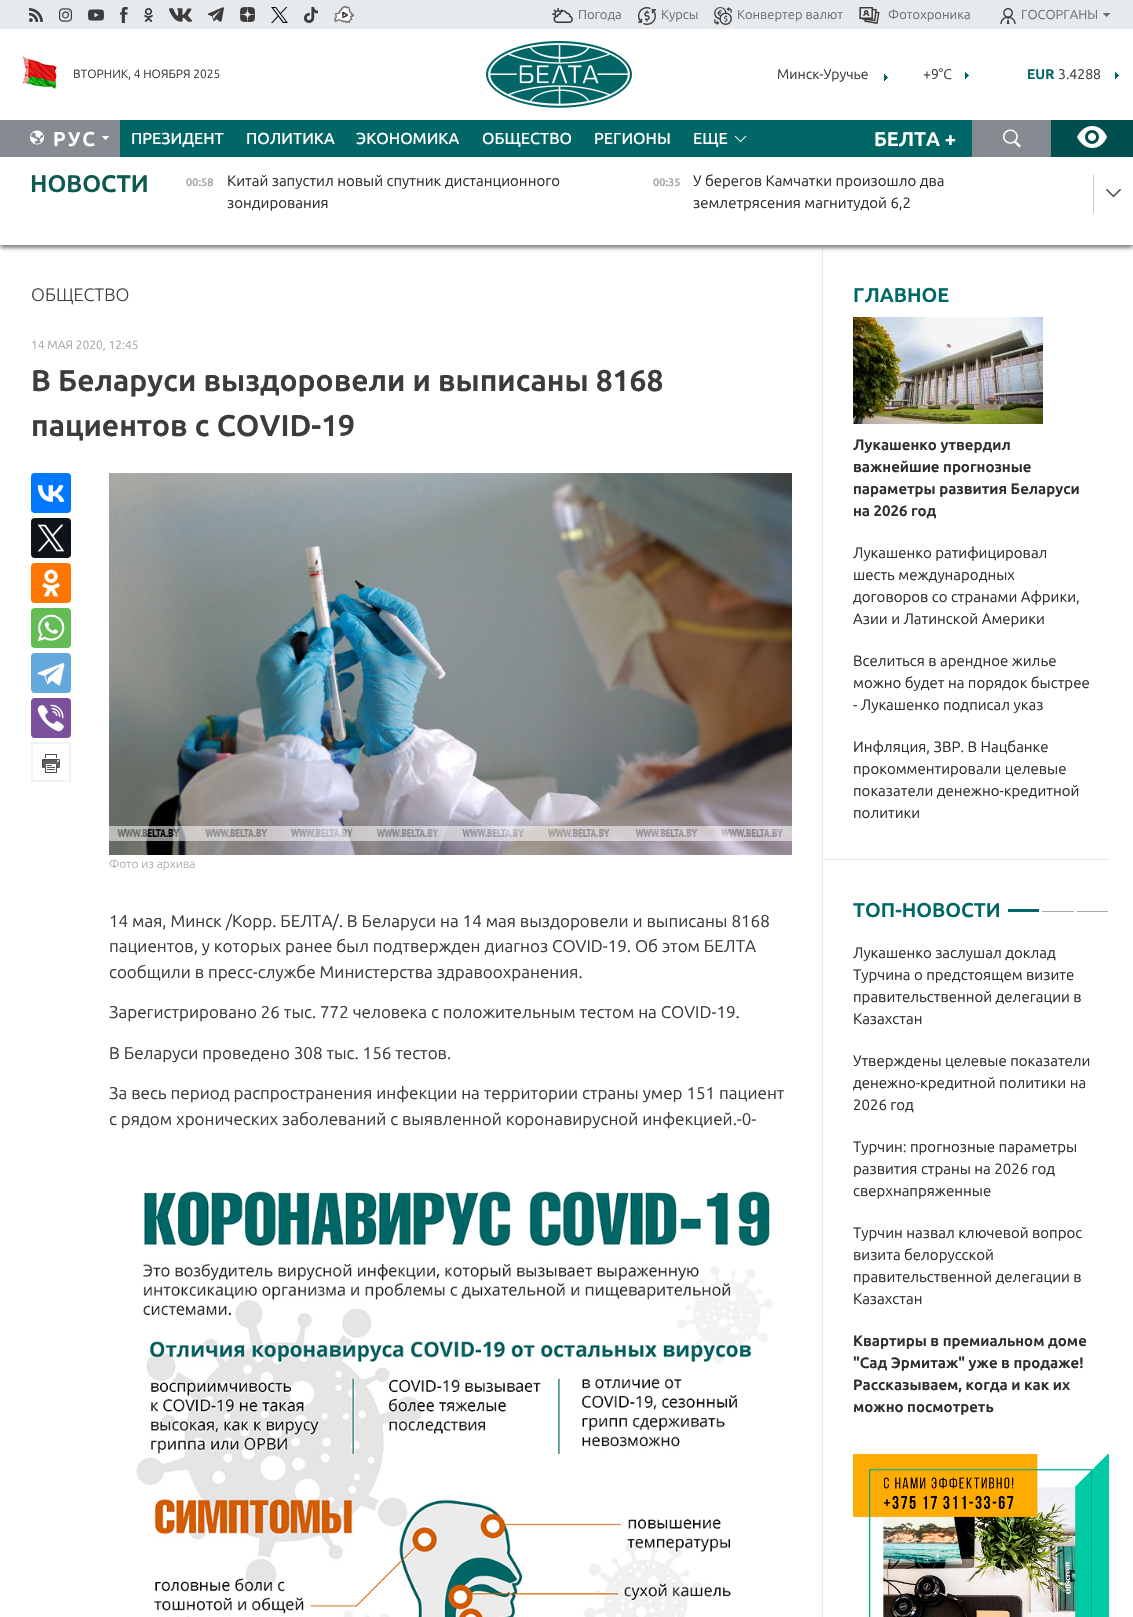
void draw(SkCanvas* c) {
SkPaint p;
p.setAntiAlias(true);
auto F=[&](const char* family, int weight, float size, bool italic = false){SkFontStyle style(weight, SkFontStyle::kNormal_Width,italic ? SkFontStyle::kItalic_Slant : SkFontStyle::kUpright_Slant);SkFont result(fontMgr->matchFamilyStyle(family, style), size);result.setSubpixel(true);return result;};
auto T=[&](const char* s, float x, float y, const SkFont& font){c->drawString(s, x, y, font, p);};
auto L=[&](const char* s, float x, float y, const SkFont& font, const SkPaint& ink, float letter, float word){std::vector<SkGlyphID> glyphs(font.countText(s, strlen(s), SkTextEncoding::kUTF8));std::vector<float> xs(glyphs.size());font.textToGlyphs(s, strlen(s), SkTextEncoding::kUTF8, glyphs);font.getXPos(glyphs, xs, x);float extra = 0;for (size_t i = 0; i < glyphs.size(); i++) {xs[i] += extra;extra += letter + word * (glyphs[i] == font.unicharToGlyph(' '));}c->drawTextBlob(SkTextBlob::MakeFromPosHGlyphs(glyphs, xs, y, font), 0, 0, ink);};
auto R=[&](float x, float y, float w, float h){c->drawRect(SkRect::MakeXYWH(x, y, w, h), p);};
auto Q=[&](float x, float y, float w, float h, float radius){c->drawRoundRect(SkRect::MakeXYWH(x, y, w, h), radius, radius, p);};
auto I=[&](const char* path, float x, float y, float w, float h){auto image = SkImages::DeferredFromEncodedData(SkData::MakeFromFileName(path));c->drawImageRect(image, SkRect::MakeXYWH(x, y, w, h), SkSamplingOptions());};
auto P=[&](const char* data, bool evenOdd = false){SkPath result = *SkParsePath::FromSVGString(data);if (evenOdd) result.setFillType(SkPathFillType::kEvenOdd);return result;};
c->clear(0xffffffff);
p.setColor(0xffe6eaed);
R(0,0,1133,29);
I("1.png",29,8,14,14);
I("2.png",59,8,13,14);
I("3.png",88,9,16,12);
I("4.png",120,7,8,16);
I("5.png",144,8,9,14);
I("6.png",169,8,23,14);
I("7.png",208,7,16,15);
I("8.png",240,7,15,15);
I("9.png",271,7,17,16);
I("10.png",304,7,14,16);
I("11.png",334,6,20,17);
I("12.png",552,8,21,15);
auto f1 = F("Ubuntu",400,13);
p.setColor(0xff6e7172);
T("Погода",578,19,f1);
I("13.png",638,7,18,18);
T("Курсы",661,19,f1);
I("14.png",714,7,18,18);
T("Конвертер валют",737,19,f1);
I("15.png",859,7,21,17);
T("Фотохроника",888,19,f1);
I("16.png",1103,13,7,4);
I("17.png",1000,8,16,16);
T("ГОСОРГАНЫ",1021,19,f1);
I("18.png",22,56,35,33);
auto f2 = F("Ubuntu",400,12);
p.setColor(0xff3c3c3c);
T("ВТОРНИК, 4 НОЯБРЯ 2025",73,78,f2);
I("19.png",486,41,146,67);
I("20.png",884,74,4,7);
auto f3 = F("Ubuntu",400,14);
T("Минск-Уручье",777,79,f3);
T("+9°C",923,79,f3);
I("20.png",965,72,4,7);
auto f4 = F("Ubuntu",700,14);
p.setColor(0xff006666);
T("EUR",1027,79,f4);
p.setColor(0xff3c3c3c);
T("3.4288",1058,79,f3);
I("20.png",1115,72,4,7);
p.setColor(0xff006666);
R(120,120,852,37);
p.setColor(0xff858b90);
R(0,120,120,37);
I("21.png",30,130,14,15);
auto f5 = F("Ubuntu",700,20);
p.setColor(0xffffffff);
L("РУС",53,146,f5,p,2,0);
I("22.png",102,136,7,4);
auto f6 = F("Ubuntu",500,16);
T("ПРЕЗИДЕНТ",131,144,f6);
T("ПОЛИТИКА",246,144,f6);
T("ЭКОНОМИКА",356,144,f6);
T("ОБЩЕСТВО",482,144,f6);
T("РЕГИОНЫ",594,144,f6);
T("ЕЩЕ",693,144,f6);
I("23.png",734,135,13,8);
T("БЕЛТА +",874,146,f5);
p.setColor(0xff858b90);
R(972,120,79,37);
I("24.png",1003,129,18,19);
p.setColor(0xff004e4e);
R(1051,120,82,37);
I("25.png",1077,126,30,22);
p.setColor(0xffe6eaed);
R(822,245,1,1372);
c->save();
c->clipPath(P("M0 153h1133v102h-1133zm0 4h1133v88h-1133z",true),true);
p.setColor(0xcc646464);
p.setMaskFilter(SkMaskFilter::MakeBlur(kNormal_SkBlurStyle, 2));
c->drawRect(SkRect::MakeXYWH(0,160,1133,88),p);
p.setMaskFilter(nullptr);
c->restore();
auto f7 = F("Ubuntu",700,24);
p.setColor(0xff0d5a50);
T("НОВОСТИ",30,192,f7);
auto f8 = F("Ubuntu",700,11);
p.setColor(0xffa3a9ad);
T("00:58",186,186,f8);
auto f9 = F("Ubuntu",400,15);
p.setColor(0xff2e2e2e);
T("Китай запустил новый спутник дистанционного",227,186,f9);
T("зондирования",227,208,f9);
p.setColor(0xffa3a9ad);
T("00:35",653,186,f8);
p.setColor(0xff2e2e2e);
T("У берегов Камчатки произошло два",693,186,f9);
T("землетрясения магнитудой 6,2",693,208,f9);
I("26.png",1106,189,15,9);
p.setColor(0xffc8c8c8);
R(1093,175,1,38);
auto f10 = F("Ubuntu",300,18);
p.setColor(0xff3c3c3c);
T("ОБЩЕСТВО",31,301,f10);
p.setColor(0xffa3a9ad);
T("14 МАЯ 2020, 12:45",31,349,f2);
auto f11 = F("Ubuntu",700,30);
p.setColor(0xff3c3c3c);
T("В Беларуси выздоровели и выписаны 8168",31,391,f11);
T("пациентов с COVID-19",31,436,f11);
p.setColor(0xff0077ff);
Q(31,473,40,40,4);
I("27.png",37,485,28,17);
p.setColor(0xff0f1419);
Q(31,518,40,40,4);
I("28.png",37,524,28,28);
p.setColor(0xffff7700);
Q(31,563,40,40,4);
I("29.png",42,569,18,28);
p.setColor(0xff65bc54);
Q(31,608,40,40,4);
I("30.png",37,614,28,28);
p.setColor(0xff64a9dc);
Q(31,653,40,40,4);
I("31.png",37,663,28,23);
p.setColor(0xff7b519d);
Q(31,698,40,40,4);
I("32.png",37,704,27,28);
I("33.png",31,742,40,40);
I("34.png",109,473,683,382);
auto f12 = F("Ubuntu",300,12);
p.setColor(0xffa3a9ad);
T("Фото из архива",109,868,f12);
auto f13 = F("Ubuntu",400,17);
p.setColor(0xff3c3c3c);
T("14 мая, Минск /Корр. БЕЛТА/. В Беларуси на 14 мая выздоровели и выписаны 8168",109,927,f13);
T("пациентов, у которых ранее был подтвержден диагноз COVID-19. Об этом БЕЛТА",109,952,f13);
T("сообщили в пресс-службе Министерства здравоохранения.",109,978,f13);
T("Зарегистрировано 26 тыс. 772 человека с положительным тестом на COVID-19.",109,1018,f13);
T("В Беларуси проведено 308 тыс. 156 тестов.",109,1059,f13);
T("За весь период распространения инфекции на территории страны умер 151 пациент",109,1099,f13);
T("с рядом хронических заболеваний с выявленной коронавирусной инфекцией.-0-",109,1125,f13);
I("35.png",136,1191,637,426);
p.setColor(0xffe6eaed);
R(822,859,287,1);
p.setColor(0xff006666);
T("ГЛАВНОЕ",853,302,f5);
I("36.png",853,317,190,107);
auto f14 = F("Ubuntu",700,15);
p.setColor(0xff2e2e2e);
T("Лукашенко утвердил",853,450,f14);
T("важнейшие прогнозные",853,472,f14);
T("параметры развития Беларуси",853,494,f14);
T("на 2026 год",853,516,f14);
T("Лукашенко ратифицировал",853,558,f9);
T("шесть международных",853,580,f9);
T("договоров со странами Африки,",853,602,f9);
T("Азии и Латинской Америки",853,624,f9);
T("Вселиться в арендное жилье",853,666,f9);
T("можно будет на порядок быстрее",853,688,f9);
T("- Лукашенко подписал указ",853,710,f9);
T("Инфляция, ЗВР. В Нацбанке",853,752,f9);
T("прокомментировали целевые",853,774,f9);
T("показатели денежно-кредитной",853,796,f9);
T("политики",853,818,f9);
p.setColor(0xff006666);
T("ТОП-НОВОСТИ",853,917,f5);
R(1008,909,31,3);
p.setColor(0xffa3a9ad);
R(1042,911,32,1);
R(1077,911,31,1);
p.setColor(0xff2e2e2e);
T("Лукашенко заслушал доклад",853,958,f9);
T("Турчина о предстоящем визите",853,980,f9);
T("правительственной делегации в",853,1002,f9);
T("Казахстан",853,1024,f9);
T("Утверждены целевые показатели",853,1066,f9);
T("денежно-кредитной политики на",853,1088,f9);
T("2026 год",853,1110,f9);
T("Турчин: прогнозные параметры",853,1152,f9);
T("развития страны на 2026 год",853,1174,f9);
T("сверхнапряженные",853,1196,f9);
T("Турчин назвал ключевой вопрос",853,1238,f9);
T("визита белорусской",853,1260,f9);
T("правительственной делегации в",853,1282,f9);
T("Казахстан",853,1304,f9);
T("Квартиры в премиальном доме",853,1346,f14);
T("\"Сад Эрмитаж\" уже в продаже!",853,1368,f14);
T("Рассказываем, когда и как их",853,1390,f14);
T("можно посмотреть",853,1412,f14);
I("37.png",853,1453,256,164);
}
